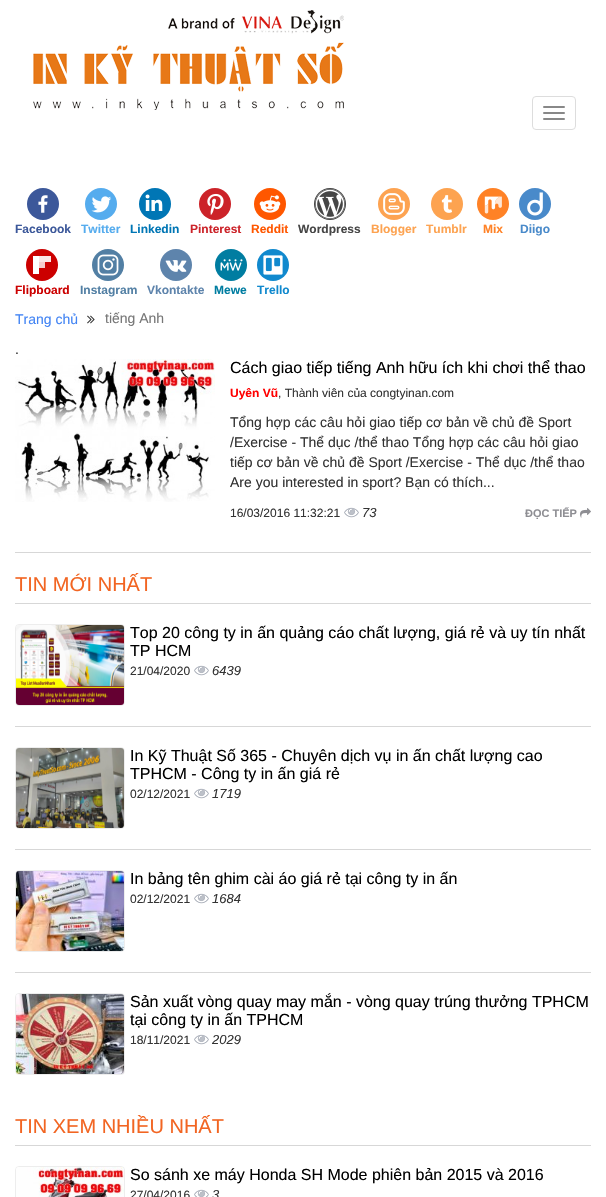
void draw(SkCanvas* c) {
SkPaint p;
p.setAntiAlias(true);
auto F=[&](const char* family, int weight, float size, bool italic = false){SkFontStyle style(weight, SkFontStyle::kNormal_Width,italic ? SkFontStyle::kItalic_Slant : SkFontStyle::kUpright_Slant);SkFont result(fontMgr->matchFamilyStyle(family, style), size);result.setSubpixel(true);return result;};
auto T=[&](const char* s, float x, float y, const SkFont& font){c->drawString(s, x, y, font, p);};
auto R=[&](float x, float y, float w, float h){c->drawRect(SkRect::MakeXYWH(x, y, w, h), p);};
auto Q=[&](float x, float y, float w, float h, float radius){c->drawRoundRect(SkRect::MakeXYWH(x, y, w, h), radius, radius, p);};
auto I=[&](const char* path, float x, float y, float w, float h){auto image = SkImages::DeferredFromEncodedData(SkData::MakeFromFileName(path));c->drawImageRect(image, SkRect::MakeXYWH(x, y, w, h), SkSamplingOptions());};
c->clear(0xffffffff);
I("1.png",33,10,311,100);
p.setStroke(true);
p.setStrokeWidth(1);
p.setColor(0xffdddddd);
c->drawRoundRect(SkRect::MakeXYWH(532.5,96.5,43,33),3.5,3.5,p);
p.setStroke(false);
p.setColor(0xff888888);
Q(543,106,22,2,1);
Q(543,112,22,2,1);
Q(543,118,22,2,1);
p.setColor(0xff3c589a);
c->drawCircle(43,204,16,p);
I("2.png",38,195,10,18);
auto f1 = F("Liberation Sans",700,12);
T("Facebook",15,233,f1);
p.setColor(0xff55acee);
c->drawCircle(101,204,16,p);
I("3.png",91,196,21,17);
T("Twitter",81,233,f1);
p.setColor(0xff0076b5);
c->drawCircle(155,204,16,p);
I("4.png",145,194,18,17);
T("Linkedin",130,233,f1);
p.setColor(0xffcc2329);
c->drawCircle(215,204,16,p);
I("5.png",207,193,17,22);
T("Pinterest",190,233,f1);
p.setColor(0xffff5700);
c->drawCircle(270,204,16,p);
I("6.png",259,195,22,18);
T("Reddit",251,233,f1);
p.setColor(0xff464646);
c->drawCircle(330,204,16,p);
I("7.png",315,189,30,30);
T("Wordpress",298,233,f1);
p.setColor(0xfffda351);
c->drawCircle(394,204,16,p);
I("8.png",383,193,22,22);
T("Blogger",371,233,f1);
p.setColor(0xfffda350);
c->drawCircle(447,204,16,p);
I("9.png",441,195,11,18);
p.setColor(0xfffda351);
T("Tumblr",426,233,f1);
p.setColor(0xffff8226);
c->drawCircle(493,204,16,p);
I("10.png",484,196,18,18);
T("Mix",483,233,f1);
p.setColor(0xff498aca);
c->drawCircle(535,204,16,p);
I("11.png",527,192,16,24);
T("Diigo",520,233,f1);
p.setColor(0xffcc0000);
c->drawCircle(42,265,16,p);
p.setColor(0xfff5cccc);
R(39,262,6,6);
p.setColor(0xfffae5e5);
R(33,256,18,6);
p.setColor(0xffffffff);
R(33,256,6,18);
p.setColor(0xffcc0000);
T("Flipboard",15,294,f1);
p.setColor(0xff527fa4);
c->drawCircle(108,265,16,p);
I("12.png",97,254,22,22);
T("Instagram",80,294,f1);
p.setColor(0xff5e84ac);
c->drawCircle(176,265,16,p);
I("13.png",165,260,22,12);
T("Vkontakte",147,294,f1);
p.setColor(0xff007da1);
c->drawCircle(231,265,16,p);
I("14.png",220,259,23,12);
T("Mewe",214,294,f1);
p.setColor(0xff1089ce);
c->drawCircle(273,265,16,p);
I("15.png",263,255,20,20);
T("Trello",257,294,f1);
auto f2 = F("Liberation Sans",400,14);
p.setColor(0xff4284f4);
T("Trang chủ",15,324,f2);
I("16.png",87,315,8,9);
p.setColor(0xff777777);
T("tiếng Anh",105,323,f2);
p.setColor(0xff333333);
T(".",15,354,f2);
p.setColor(0xffd7d7d7);
R(15,552,576,1);
I("17.png",15,359,200,143);
auto f3 = F("Liberation Sans",400,16);
p.setColor(0xff000000);
T("Cách giao tiếp tiếng Anh hữu ích khi chơi thể thao",230,373,f3);
p.setColor(0xffff0000);
T("Uyên Vũ",230,397,f1);
auto f4 = F("Liberation Sans",400,12);
p.setColor(0xff333333);
T(", Thành viên của congtyinan.com",278,397,f4);
T("Tổng hợp các câu hỏi giao tiếp cơ bản về chủ đề Sport",230,427,f2);
T("/Exercise - Thể dục /thể thao Tổng hợp các câu hỏi giao",230,447,f2);
T("tiếp cơ bản về chủ đề Sport /Exercise - Thể dục /thể thao",230,467,f2);
T("Are you interested in sport? Bạn có thích...",230,487,f2);
T("16/03/2016 11:32:21",230,517,f4);
I("18.png",344,507,15,11);
auto f5 = F("Liberation Sans",400,13,true);
T("73",362,517,f5);
auto f6 = F("Liberation Sans",700,11);
p.setColor(0xff8e8e93);
T("ĐỌC TIẾP",525,517,f6);
I("19.png",580,508,11,10);
p.setColor(0xffd7d7d7);
R(15,603,576,1);
auto f7 = F("Liberation Sans",400,20);
p.setColor(0xfff26522);
T("TIN MỚI NHẤT",15,591,f7);
p.setColor(0xffd7d7d7);
R(15,726,576,1);
p.setStroke(true);
p.setColor(0xffededed);
c->drawRoundRect(SkRect::MakeXYWH(15.5,624.5,109,81),3.5,3.5,p);
I("20.png",16,625,108,80);
p.setStroke(false);
p.setColor(0xff000000);
T("Top 20 công ty in ấn quảng cáo chất lượng, giá rẻ và uy tín nhất",130,638,f3);
T("TP HCM",130,656,f3);
p.setColor(0xff333333);
T("21/04/2020",130,675,f4);
I("18.png",194,665,15,11);
T("6439",212,675,f5);
p.setColor(0xffd7d7d7);
R(15,849,576,1);
p.setStroke(true);
p.setColor(0xffededed);
c->drawRoundRect(SkRect::MakeXYWH(15.5,747.5,109,81),3.5,3.5,p);
I("21.png",16,748,108,80);
p.setStroke(false);
p.setColor(0xff000000);
T("In Kỹ Thuật Số 365 - Chuyên dịch vụ in ấn chất lượng cao",130,761,f3);
T("TPHCM - Công ty in ấn giá rẻ",130,779,f3);
p.setColor(0xff333333);
T("02/12/2021",130,798,f4);
I("18.png",194,788,15,11);
T("1719",212,798,f5);
p.setColor(0xffd7d7d7);
R(15,972,576,1);
p.setStroke(true);
p.setColor(0xffededed);
c->drawRoundRect(SkRect::MakeXYWH(15.5,870.5,109,81),3.5,3.5,p);
I("22.png",16,871,108,80);
p.setStroke(false);
p.setColor(0xff000000);
T("In bảng tên ghim cài áo giá rẻ tại công ty in ấn",130,884,f3);
p.setColor(0xff333333);
T("02/12/2021",130,903,f4);
I("18.png",194,893,15,11);
T("1684",212,903,f5);
p.setStroke(true);
p.setColor(0xffededed);
c->drawRoundRect(SkRect::MakeXYWH(15.5,993.5,109,81),3.5,3.5,p);
I("23.png",16,994,108,80);
p.setStroke(false);
p.setColor(0xff000000);
T("Sản xuất vòng quay may mắn - vòng quay trúng thưởng TPHCM",130,1007,f3);
T("tại công ty in ấn TPHCM",130,1025,f3);
p.setColor(0xff333333);
T("18/11/2021",130,1044,f4);
I("18.png",194,1034,15,11);
T("2029",212,1044,f5);
p.setColor(0xffd7d7d7);
R(15,1145,576,1);
p.setColor(0xfff26522);
T("TIN XEM NHIỀU NHẤT",15,1133,f7);
p.setStroke(true);
p.setColor(0xffededed);
c->drawRoundRect(SkRect::MakeXYWH(15.5,1166.5,109,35),3.5,3.5,p);
I("24.png",16,1167,108,30);
p.setStroke(false);
p.setColor(0xff000000);
T("So sánh xe máy Honda SH Mode phiên bản 2015 và 2016",130,1180,f3);
p.setColor(0xff333333);
T("27/04/2016",130,1199,f4);
I("25.png",194,1189,15,8);
T("3",212,1199,f5);
}
